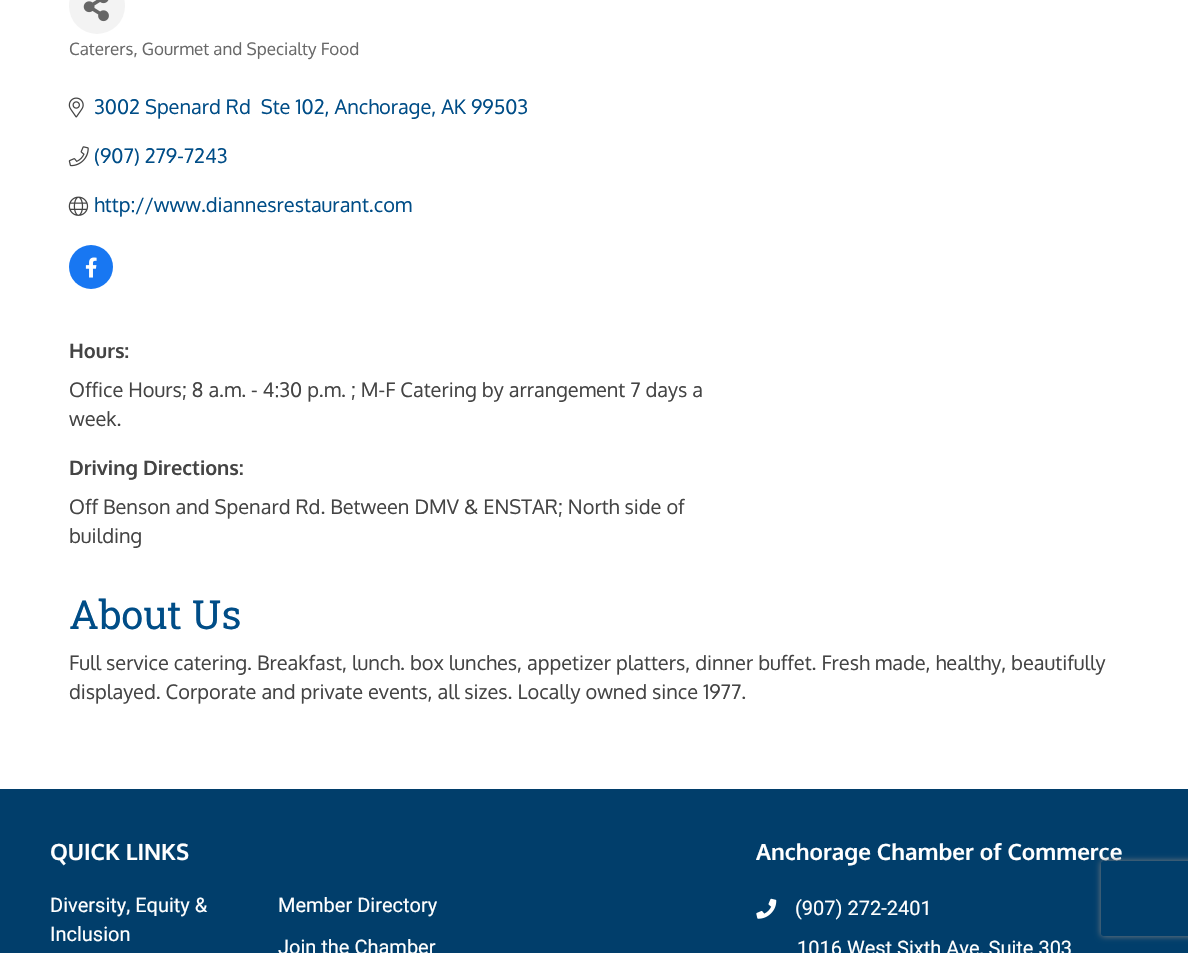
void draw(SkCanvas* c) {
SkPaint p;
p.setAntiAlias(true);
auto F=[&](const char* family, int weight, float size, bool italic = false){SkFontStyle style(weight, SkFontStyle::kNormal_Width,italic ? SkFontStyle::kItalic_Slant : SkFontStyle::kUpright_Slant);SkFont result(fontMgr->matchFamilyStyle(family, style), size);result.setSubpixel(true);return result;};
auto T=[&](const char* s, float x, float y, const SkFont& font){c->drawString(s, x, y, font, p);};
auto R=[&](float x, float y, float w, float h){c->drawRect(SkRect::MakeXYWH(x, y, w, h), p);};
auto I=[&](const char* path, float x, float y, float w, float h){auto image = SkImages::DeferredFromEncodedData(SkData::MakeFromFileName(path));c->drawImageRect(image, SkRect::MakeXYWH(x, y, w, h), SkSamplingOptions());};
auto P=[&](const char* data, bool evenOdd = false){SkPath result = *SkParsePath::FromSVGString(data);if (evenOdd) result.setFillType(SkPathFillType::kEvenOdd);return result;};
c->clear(0xffffffff);
p.setColor(0xfff3f3f3);
c->drawCircle(97,6,28,p);
I("1.png",83,0,26,22);
auto f1 = F("Oxygen",400,17);
p.setColor(0xff696969);
T("Caterers, Gourmet and Specialty Food",69,55,f1);
I("2.png",68,97,16,21);
auto f2 = F("Oxygen",400,20);
p.setColor(0xff004d87);
T("3002 Spenard Rd  Ste 102, Anchorage, AK 99503",94,114,f2);
I("3.png",68,146,21,21);
T("(907) 279-7243",94,163,f2);
I("4.png",68,196,21,20);
T("http://www.diannesrestaurant.com",94,212,f2);
p.setColor(0xff1877f2);
c->drawCircle(91,267,22,p);
I("5.png",85,257,12,21);
auto f3 = F("Oxygen",700,20);
p.setColor(0xff444444);
T("Hours:",69,358,f3);
T("Office Hours; 8 a.m. - 4:30 p.m. ; M-F Catering by arrangement 7 days a",69,397,f2);
T("week.",69,426,f2);
T("Driving Directions:",69,475,f3);
T("Off Benson and Spenard Rd. Between DMV & ENSTAR; North side of",69,514,f2);
T("building",69,543,f2);
auto f4 = F("Roboto Slab",400,40);
p.setColor(0xff004d87);
T("About Us",69,629,f4);
p.setColor(0xff444444);
T("Full service catering. Breakfast, lunch. box lunches, appetizer platters, dinner buffet. Fresh made, healthy, beautifully",69,670,f2);
T("displayed. Corporate and private events, all sizes. Locally owned since 1977.",69,699,f2);
p.setColor(0xff013e6b);
R(0,789,1188,164);
auto f5 = F("Oxygen",700,22.5);
p.setColor(0xffffffff);
T("QUICK LINKS",50,860,f5);
auto f6 = F("Roboto",400,20);
T("Diversity, Equity &",50,912,f6);
T("Inclusion",50,941,f6);
T("Member Directory",278,912,f6);
T("Join the Chamber",278,954,f6);
T("Anchorage Chamber of Commerce",756,860,f5);
I("6.png",756,898,21,21);
T("(907) 272-2401",795,915,f6);
T("1016 West Sixth Ave, Suite 303",797,955,f6);
c->save();
c->clipPath(P("M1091 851h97v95h-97zm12.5 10h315c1.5 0 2.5 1 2.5 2.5v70c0 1.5-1 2.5-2.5 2.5h-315c-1.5 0-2.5-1-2.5-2.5v-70c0-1.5 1-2.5 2.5-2.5z",true),true);
p.setColor(0xff808080);
p.setMaskFilter(SkMaskFilter::MakeBlur(kNormal_SkBlurStyle, 3));
c->drawRoundRect(SkRect::MakeXYWH(1101,861,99,75),2.5,2.5,p);
p.setMaskFilter(nullptr);
c->restore();
}
